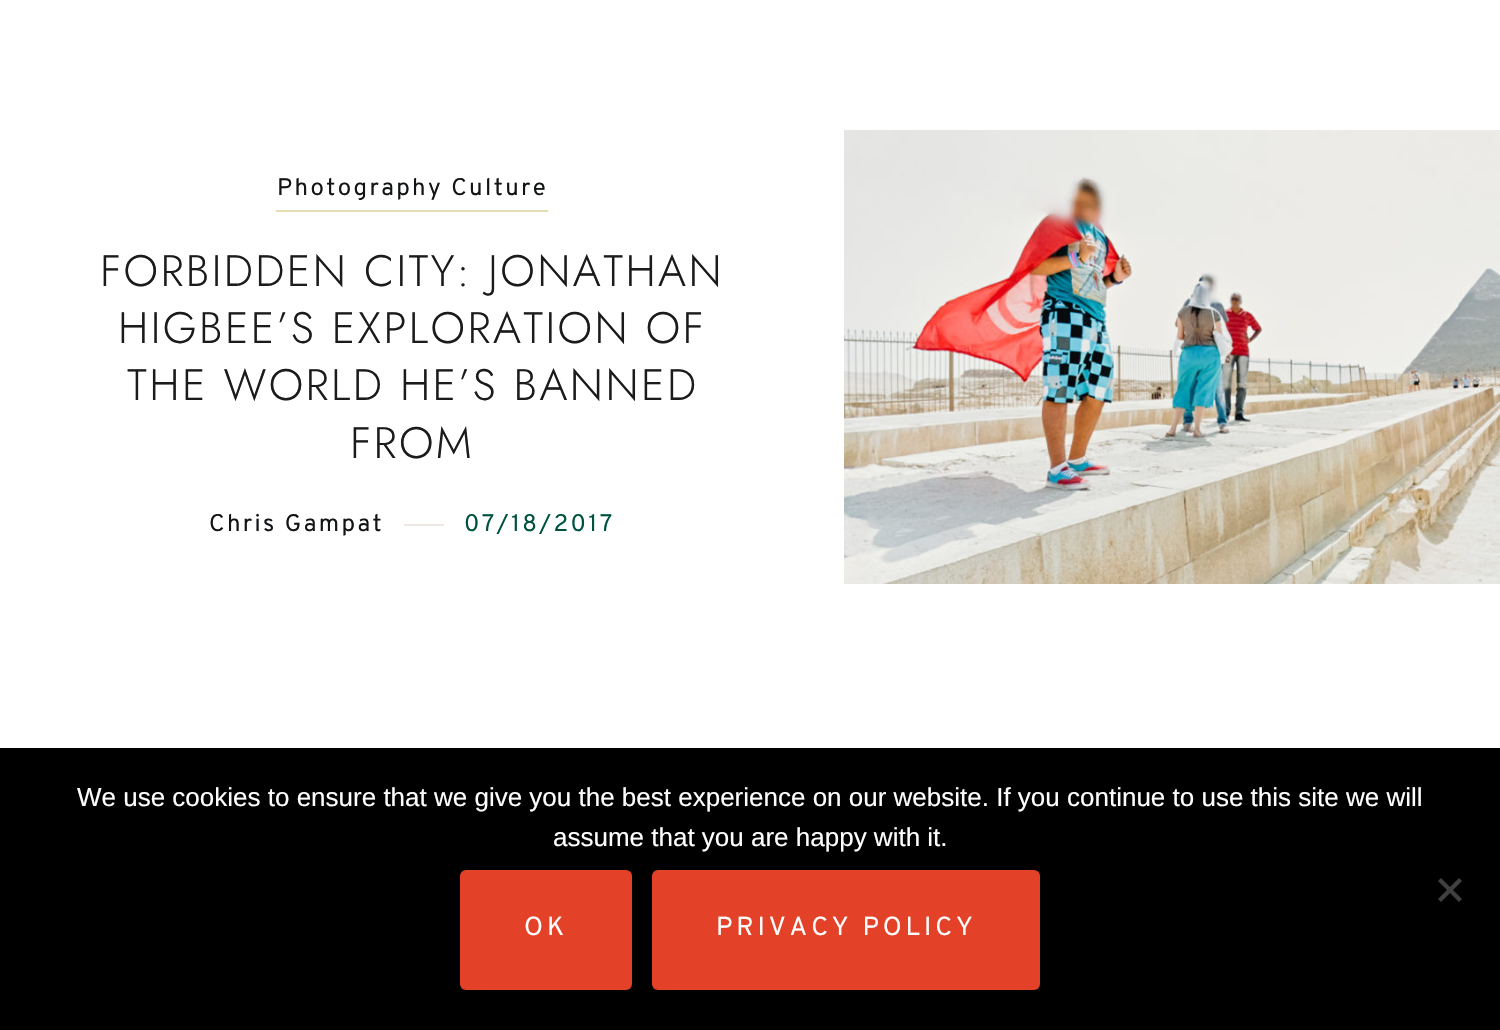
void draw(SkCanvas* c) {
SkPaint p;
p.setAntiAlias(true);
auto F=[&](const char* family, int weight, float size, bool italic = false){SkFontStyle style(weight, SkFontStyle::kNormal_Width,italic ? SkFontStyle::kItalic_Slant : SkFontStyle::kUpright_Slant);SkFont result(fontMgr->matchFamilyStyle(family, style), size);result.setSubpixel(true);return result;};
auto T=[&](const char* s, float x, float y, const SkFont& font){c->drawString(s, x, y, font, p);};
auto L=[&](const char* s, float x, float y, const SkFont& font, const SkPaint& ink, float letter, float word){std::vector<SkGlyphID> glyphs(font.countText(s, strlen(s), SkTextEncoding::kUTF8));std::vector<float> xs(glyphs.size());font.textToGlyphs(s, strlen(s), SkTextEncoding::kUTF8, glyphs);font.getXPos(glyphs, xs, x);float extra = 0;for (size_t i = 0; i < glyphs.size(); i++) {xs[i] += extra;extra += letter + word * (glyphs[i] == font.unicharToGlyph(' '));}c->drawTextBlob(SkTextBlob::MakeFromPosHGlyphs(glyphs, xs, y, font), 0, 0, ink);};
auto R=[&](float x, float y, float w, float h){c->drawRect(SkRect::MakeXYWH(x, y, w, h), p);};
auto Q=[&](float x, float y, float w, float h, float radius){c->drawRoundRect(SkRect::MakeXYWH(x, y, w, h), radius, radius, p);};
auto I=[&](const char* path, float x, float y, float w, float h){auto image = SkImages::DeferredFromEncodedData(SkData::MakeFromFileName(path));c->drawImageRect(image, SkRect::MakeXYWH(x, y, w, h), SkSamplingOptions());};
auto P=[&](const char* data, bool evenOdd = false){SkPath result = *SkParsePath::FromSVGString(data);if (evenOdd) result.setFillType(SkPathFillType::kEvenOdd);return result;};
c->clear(0xffffffff);
p.setColor(0xffe5ddb3);
R(276,210,272,2);
auto f1 = F("Overpass",400,24);
p.setColor(0xff121416);
L("Photography Culture",277,195,f1,p,2.4,0);
auto f2 = F("Jost",300,44);
p.setColor(0xff1b1b1b);
L("FORBIDDEN CITY: JONATHAN",100,286,f2,p,2.4,0);
L("HIGBEE’S EXPLORATION OF",118,343,f2,p,2.4,0);
L("THE WORLD HE’S BANNED",127,400,f2,p,2.4,0);
L("FROM",350,458,f2,p,2.4,0);
p.setColor(0xff121416);
L("Chris Gampat",209,531,f1,p,2.4,0);
p.setColor(0xffeee6e2);
R(404,524,40,2);
p.setColor(0xff005240);
L("07/18/2017",464,531,f1,p,2.4,0);
I("1.png",844,130,656,454);
p.setColor(0xff000000);
R(0,748,1500,282);
auto f3 = F("Liberation Sans",400,26);
p.setColor(0xffffffff);
T("We use cookies to ensure that we give you the best experience on our website. If you continue to use this site we will",77,806,f3);
T("assume that you are happy with it.",553,846,f3);
p.setColor(0xff404040);
c->drawPath(P("M1459 878l3 3l-21 21l-3-3z"),p);
c->drawPath(P("M1438 881l3-3l21 21l-3 3z"),p);
p.setColor(0xffe34228);
Q(460,870,172,120,6);
auto f4 = F("Overpass",400,26);
p.setColor(0xffffffff);
L("OK",524,935,f4,p,3.9,0);
p.setColor(0xffe34228);
Q(652,870,388,120,6);
p.setColor(0xffffffff);
L("PRIVACY POLICY",716,935,f4,p,3.9,0);
}
